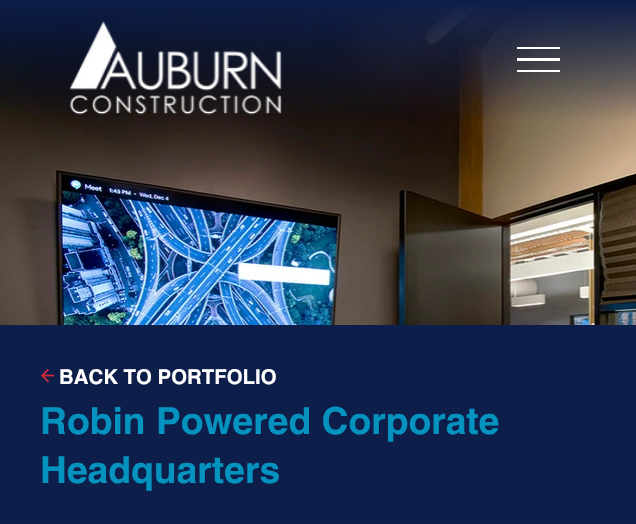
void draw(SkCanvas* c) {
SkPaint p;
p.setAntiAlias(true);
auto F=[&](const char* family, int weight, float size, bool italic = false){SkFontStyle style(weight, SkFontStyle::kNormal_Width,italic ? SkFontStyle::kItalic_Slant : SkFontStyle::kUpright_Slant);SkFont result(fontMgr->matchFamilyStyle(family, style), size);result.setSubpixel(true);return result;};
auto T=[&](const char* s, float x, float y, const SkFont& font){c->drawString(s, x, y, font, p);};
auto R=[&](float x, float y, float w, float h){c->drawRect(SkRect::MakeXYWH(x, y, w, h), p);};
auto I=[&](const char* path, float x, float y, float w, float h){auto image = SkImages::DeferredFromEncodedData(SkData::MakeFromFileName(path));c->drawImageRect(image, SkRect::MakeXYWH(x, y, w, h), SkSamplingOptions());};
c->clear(0xff0d1e4a);
I("2.png",0,0,636,325);
I("1.png",69,21,213,94);
p.setColor(0xffffffff);
R(517,47,43,2);
R(517,58,43,3);
R(517,70,43,2);
I("3.png",41,369,14,14);
auto f1 = F("helvetica",700,20.4);
T("BACK TO PORTFOLIO",59,384,f1);
auto f2 = F("helvetica",700,37.25);
p.setColor(0xff0492bf);
T("Robin Powered Corporate",40,434,f2);
T("Headquarters",40,483,f2);
}
